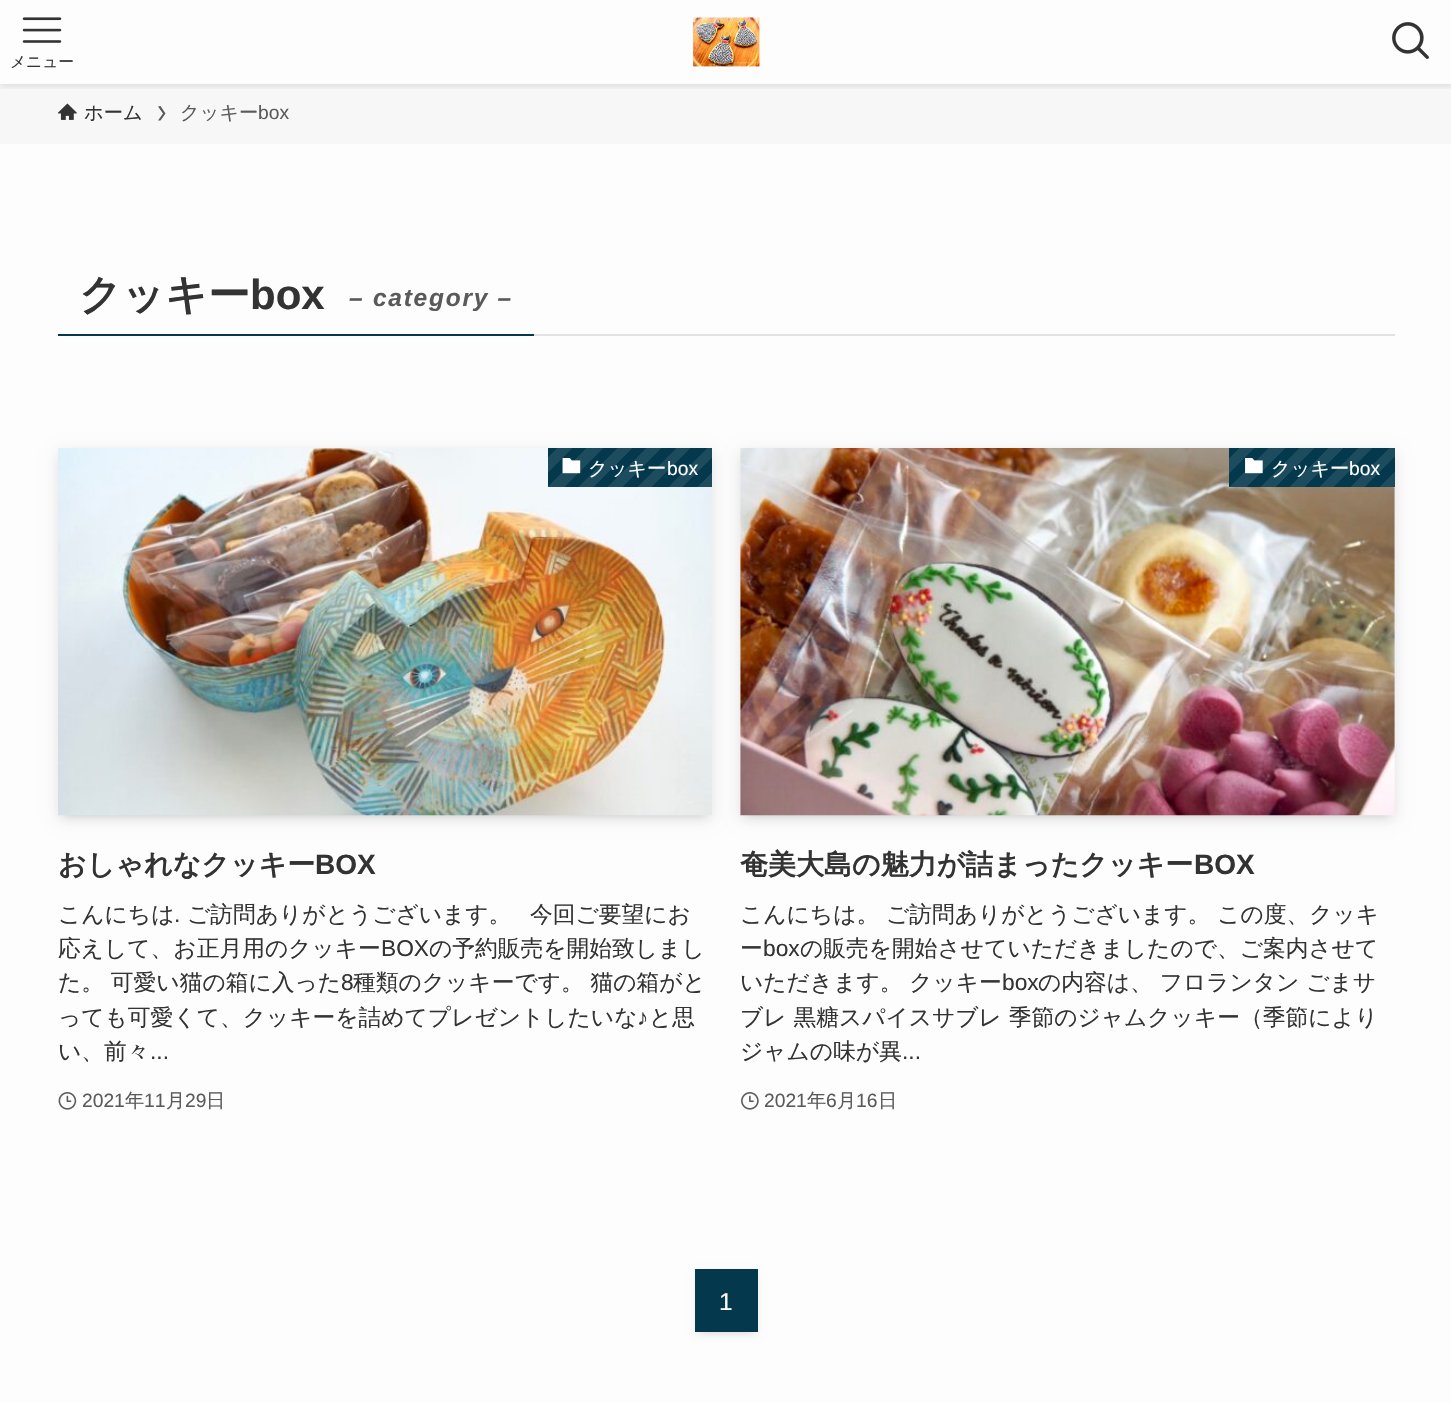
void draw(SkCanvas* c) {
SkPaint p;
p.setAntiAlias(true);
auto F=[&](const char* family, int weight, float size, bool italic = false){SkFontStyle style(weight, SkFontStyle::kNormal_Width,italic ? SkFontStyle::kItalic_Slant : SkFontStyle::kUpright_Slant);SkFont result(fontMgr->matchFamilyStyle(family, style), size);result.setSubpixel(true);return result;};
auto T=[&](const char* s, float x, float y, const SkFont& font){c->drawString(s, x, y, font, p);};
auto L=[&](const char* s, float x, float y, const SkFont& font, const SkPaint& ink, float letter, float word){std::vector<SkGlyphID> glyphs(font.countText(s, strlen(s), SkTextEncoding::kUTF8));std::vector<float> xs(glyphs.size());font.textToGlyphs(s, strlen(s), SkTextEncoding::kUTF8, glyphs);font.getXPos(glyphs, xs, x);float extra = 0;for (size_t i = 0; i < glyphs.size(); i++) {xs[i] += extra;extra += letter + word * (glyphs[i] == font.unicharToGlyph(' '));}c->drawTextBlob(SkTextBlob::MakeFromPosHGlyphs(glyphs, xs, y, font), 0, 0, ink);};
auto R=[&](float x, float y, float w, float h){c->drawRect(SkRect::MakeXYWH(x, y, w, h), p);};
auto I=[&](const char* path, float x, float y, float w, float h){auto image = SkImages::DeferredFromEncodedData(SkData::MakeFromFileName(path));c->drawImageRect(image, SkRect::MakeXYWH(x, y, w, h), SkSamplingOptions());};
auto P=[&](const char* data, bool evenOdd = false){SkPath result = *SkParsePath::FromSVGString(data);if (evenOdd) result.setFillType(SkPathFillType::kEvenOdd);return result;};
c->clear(0xfffdfdfd);
p.setColor(0xfff7f7f7);
R(0,84,1451,60);
c->save();
c->clipRect(SkRect::MakeXYWH(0,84,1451,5));
p.setColor(0x1f000000);
p.setMaskFilter(SkMaskFilter::MakeBlur(kNormal_SkBlurStyle, 3.5));
c->drawRect(SkRect::MakeXYWH(0,2,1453,84),p);
p.setMaskFilter(nullptr);
c->restore();
I("1.png",693,17,67,50);
I("2.png",1392,22,37,37);
I("3.png",22,17,40,26);
auto f1 = F("WenQuanYi Zen Hei",500,15.75);
p.setColor(0xff333333);
T("メニュー",10,67,f1);
I("4.png",58,103,19,17);
auto f2 = F("WenQuanYi Zen Hei",500,19.25);
T("ホーム",84,119,f2);
p.setColor(0xff5a5a5a);
c->drawPath(P("M160.5 106l-2.5 .5l5 7l-5 7h2.5l5-7z"),p);
T("クッキー",180,119,f2);
auto f3 = F("Liberation Sans",400,19.25);
T("box",258,119,f3);
p.setColor(0xffe2e2e2);
R(534,334,861,2);
p.setColor(0xff04384c);
R(58,334,476,2);
auto f4 = F("WenQuanYi Zen Hei",700,42);
p.setColor(0xff333333);
T("クッキー",79,309,f4);
auto f5 = F("Liberation Sans",700,42);
T("box",250,309,f5);
auto f6 = F("Liberation Sans",700,24.5,true);
p.setColor(0xff5a5a5a);
L("– category –",349,306,f6,p,1.75,0);
p.setColor(0x1a000000);
p.setMaskFilter(SkMaskFilter::MakeBlur(kNormal_SkBlurStyle, 3.5));
c->drawRect(SkRect::MakeXYWH(65,462,640,354),p);
p.setMaskFilter(nullptr);
p.setMaskFilter(SkMaskFilter::MakeBlur(kNormal_SkBlurStyle, 7));
c->drawRect(SkRect::MakeXYWH(58,452,654,367),p);
p.setMaskFilter(nullptr);
I("5.png",58,448,654,368);
{
const SkColor colors[] = {0xff1d4c5e,0xff1d4c5e,0xff04384c,0xff04384c,0xff1d4c5e,0xff1d4c5e,0xff04384c,0xff04384c,0xff1d4c5e,0xff1d4c5e,0xff04384c,0xff04384c,0xff1d4c5e,0xff1d4c5e,0xff04384c,0xff04384c,0xff1d4c5e,0xff1d4c5e,0xff04384c,0xff04384c,0xff1d4c5e,0xff1d4c5e,0xff04384c,0xff04384c,0xff1d4c5e,0xff1d4c5e,0xff04384c,0xff04384c};
const float stops[] = {0,.07,.07,.14,.14,.21,.21,.29,.29,.36,.36,.43,.43,.5,.5,.57,.57,.64,.64,.71,.71,.79,.79,.86,.86,.93,.93,1};
const SkPoint ends[] = {{681,518}, {577,414}};
p.setShader(SkGradientShader::MakeLinear(ends, colors, stops, 28, SkTileMode::kClamp));
p.setAlpha(255);
}
R(548,448,164,39);
I("6.png",562,458,19,16);
p.setShader(nullptr);
p.setColor(0xffffffff);
T("クッキー",588,475,f2);
T("box",667,475,f3);
auto f7 = F("WenQuanYi Zen Hei",700,28);
p.setColor(0xff333333);
T("おしゃれなクッキー",58,874,f7);
auto f8 = F("Liberation Sans",700,28);
T("BOX",315,874,f8);
auto f9 = F("WenQuanYi Zen Hei",500,22.75);
T("こんにちは",58,922,f9);
auto f10 = F("Liberation Sans",400,22.75);
T(".",174,922,f10);
T("ご訪問ありがとうございます。",187,922,f9);
T("今回ご要望にお",530,922,f9);
T("応えして、お正月用のクッキー",58,956,f9);
T("BOX",381,956,f10);
T("の予約販売を開始致しまし",429,956,f9);
T("た。 可愛い猫の箱に入った",58,990,f9);
T("8",341,990,f10);
T("種類のクッキーです。 猫の箱がと",353,990,f9);
T("っても可愛くて、クッキーを詰めてプレゼントしたいな",58,1025,f9);
T("♪",637,1025,f10);
T("と思",649,1025,f9);
T("い、前々",58,1059,f9);
T("...",150,1059,f10);
I("7.png",58,1092,19,18);
p.setColor(0xff5a5a5a);
T("2021",82,1107,f3);
T("年",125,1107,f2);
T("11",144,1107,f3);
T("月",166,1107,f2);
T("29",185,1107,f3);
T("日",206,1107,f2);
p.setColor(0x1a000000);
p.setMaskFilter(SkMaskFilter::MakeBlur(kNormal_SkBlurStyle, 3.5));
c->drawRect(SkRect::MakeXYWH(747,462,641,354),p);
p.setMaskFilter(nullptr);
p.setMaskFilter(SkMaskFilter::MakeBlur(kNormal_SkBlurStyle, 7));
c->drawRect(SkRect::MakeXYWH(740,452,655,367),p);
p.setMaskFilter(nullptr);
I("8.png",740,448,655,368);
{
const SkColor colors[] = {0xff1d4c5e,0xff1d4c5e,0xff04384c,0xff04384c,0xff1d4c5e,0xff1d4c5e,0xff04384c,0xff04384c,0xff1d4c5e,0xff1d4c5e,0xff04384c,0xff04384c,0xff1d4c5e,0xff1d4c5e,0xff04384c,0xff04384c,0xff1d4c5e,0xff1d4c5e,0xff04384c,0xff04384c,0xff1d4c5e,0xff1d4c5e,0xff04384c,0xff04384c,0xff1d4c5e,0xff1d4c5e,0xff04384c,0xff04384c};
const float stops[] = {0,.07,.07,.14,.14,.21,.21,.29,.29,.36,.36,.43,.43,.5,.5,.57,.57,.64,.64,.71,.71,.79,.79,.86,.86,.93,.93,1};
const SkPoint ends[] = {{1363,518}, {1259,414}};
p.setShader(SkGradientShader::MakeLinear(ends, colors, stops, 28, SkTileMode::kClamp));
p.setAlpha(255);
}
R(1229,448,166,39);
I("9.png",1245,458,18,16);
p.setShader(nullptr);
p.setColor(0xffffffff);
T("クッキー",1271,475,f2);
T("box",1349,475,f3);
p.setColor(0xff333333);
T("奄美大島の魅力が詰まったクッキー",740,874,f7);
T("BOX",1194,874,f8);
T("こんにちは。 ご訪問ありがとうございます。 この度、クッキ",740,922,f9);
T("ー",740,956,f9);
T("box",763,956,f10);
T("の販売を開始させていただきましたので、ご案内させて",800,956,f9);
T("いただきます。 クッキー",740,990,f9);
T("box",1002,990,f10);
T("の内容は、 フロランタン ごまサ",1038,990,f9);
T("ブレ 黒糖スパイスサブレ 季節のジャムクッキー（季節により",740,1025,f9);
T("ジャムの味が異",740,1059,f9);
T("...",902,1059,f10);
I("10.png",741,1092,18,18);
p.setColor(0xff5a5a5a);
T("2021",764,1107,f3);
T("年",807,1107,f2);
T("6",826,1107,f3);
T("月",837,1107,f2);
T("16",856,1107,f3);
T("日",878,1107,f2);
p.setColor(0x1a000000);
p.setMaskFilter(SkMaskFilter::MakeBlur(kNormal_SkBlurStyle, 3.5));
c->drawRect(SkRect::MakeXYWH(702,1283,49,49),p);
p.setMaskFilter(nullptr);
p.setColor(0x0d000000);
p.setMaskFilter(SkMaskFilter::MakeBlur(kNormal_SkBlurStyle, 3.5));
c->drawRect(SkRect::MakeXYWH(695,1272,63,63),p);
p.setMaskFilter(nullptr);
p.setColor(0xff04384c);
R(695,1269,63,63);
auto f11 = F("Liberation Sans",400,24.5);
p.setColor(0xffffffff);
T("1",719,1310,f11);
}
